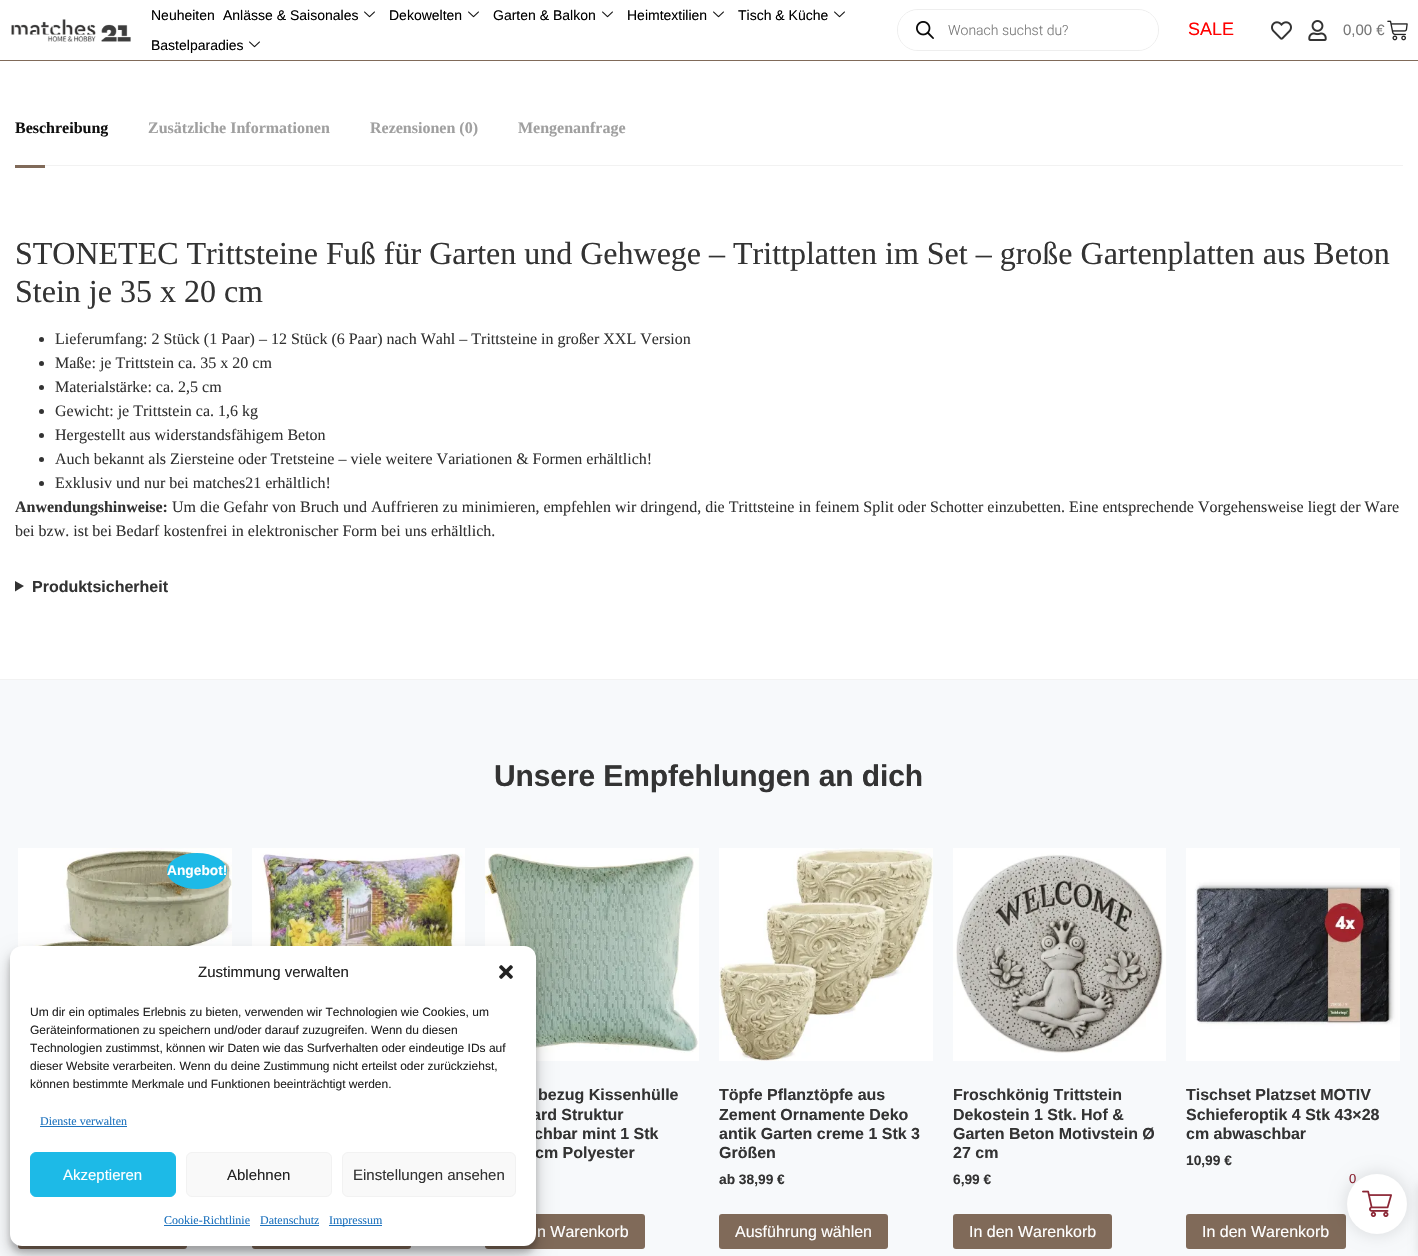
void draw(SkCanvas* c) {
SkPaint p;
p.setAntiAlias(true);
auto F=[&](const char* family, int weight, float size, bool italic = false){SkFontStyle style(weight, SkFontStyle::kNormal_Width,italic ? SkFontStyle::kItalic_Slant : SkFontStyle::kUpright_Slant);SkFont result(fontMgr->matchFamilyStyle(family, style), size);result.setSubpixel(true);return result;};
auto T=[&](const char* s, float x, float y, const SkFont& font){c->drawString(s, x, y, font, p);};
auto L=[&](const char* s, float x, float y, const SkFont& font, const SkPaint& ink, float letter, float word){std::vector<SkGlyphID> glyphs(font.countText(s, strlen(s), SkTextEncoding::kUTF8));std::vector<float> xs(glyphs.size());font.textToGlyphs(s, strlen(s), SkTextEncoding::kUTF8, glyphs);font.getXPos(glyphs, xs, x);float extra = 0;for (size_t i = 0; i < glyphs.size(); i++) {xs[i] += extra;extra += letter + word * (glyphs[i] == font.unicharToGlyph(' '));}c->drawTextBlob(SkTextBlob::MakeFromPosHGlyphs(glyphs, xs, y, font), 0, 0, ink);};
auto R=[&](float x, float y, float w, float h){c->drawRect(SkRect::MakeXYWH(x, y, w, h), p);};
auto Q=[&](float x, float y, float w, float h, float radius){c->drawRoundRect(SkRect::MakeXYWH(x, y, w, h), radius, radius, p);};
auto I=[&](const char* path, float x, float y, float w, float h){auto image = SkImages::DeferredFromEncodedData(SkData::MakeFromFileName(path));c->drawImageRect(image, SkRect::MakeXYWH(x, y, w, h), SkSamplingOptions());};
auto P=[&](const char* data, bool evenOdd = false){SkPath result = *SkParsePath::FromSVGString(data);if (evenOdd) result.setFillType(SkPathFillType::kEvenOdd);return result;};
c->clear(0xffffffff);
p.setColor(0xff806a59);
R(0,60,142,1);
I("1.png",11,19,120,23);
auto f1 = F("Liberation Sans",400,14);
p.setColor(0xff000000);
T("Neuheiten",151,20,f1);
T("Anlässe & Saisonales",223,20,f1);
I("2.png",364,11,11,7);
T("Dekowelten",389,20,f1);
I("2.png",468,11,11,7);
T("Garten & Balkon",493,20,f1);
I("2.png",602,11,11,7);
T("Heimtextilien",627,20,f1);
I("2.png",713,11,11,7);
T("Tisch & Küche",738,20,f1);
I("2.png",834,11,11,7);
T("Bastelparadies",151,50,f1);
I("2.png",249,41,11,7);
p.setColor(0xff806a59);
R(142,60,1276,1);
p.setStroke(true);
p.setStrokeWidth(1);
p.setColor(0xffeeeeee);
c->drawRoundRect(SkRect::MakeXYWH(897.5,9.5,261,41),20.5,20.5,p);
p.setStroke(false);
p.setColor(0xffffffff);
Q(898,10,260,40,20);
I("3.png",916,21,18,18);
auto f2 = F("Roboto",300,14);
p.setColor(0xff777777);
T("Wonach suchst du?",948,35,f2);
auto f3 = F("Liberation Sans",400,18);
p.setColor(0xffff0000);
T("SALE",1188,35,f3);
I("4.png",1271,21,21,19);
I("5.png",1308,20,19,21);
auto f4 = F("Liberation Sans",400,15);
p.setColor(0xff777777);
T("0,00 €",1343,35,f4);
I("6.png",1387,20,21,21);
p.setColor(0xfff2f2f2);
R(0,679,1418,1);
R(45,165,1358,1);
auto f5 = F("Liberation Serif",700,16);
p.setColor(0xff101010);
T("Beschreibung",15,133,f5);
p.setColor(0xffa0a0a0);
T("Zusätzliche Informationen",148,133,f5);
T("Rezensionen (0)",370,133,f5);
T("Mengenanfrage",518,133,f5);
p.setColor(0xff806a59);
R(15,165,30,3);
auto f6 = F("Liberation Serif",400,32);
p.setColor(0xff333333);
T("STONETEC Trittsteine Fuß für Garten und Gehwege – Trittplatten im Set – große Gartenplatten aus Beton",15,264,f6);
T("Stein je 35 x 20 cm",15,302,f6);
c->drawCircle(41.5,339.5,2.5,p);
auto f7 = F("Liberation Serif",400,16);
T("Lieferumfang: 2 Stück (1 Paar) – 12 Stück (6 Paar) nach Wahl – Trittsteine in großer XXL Version",55,344,f7);
c->drawCircle(41.5,363.5,2.5,p);
T("Maße: je Trittstein ca. 35 x 20 cm",55,368,f7);
c->drawCircle(41.5,387.5,2.5,p);
T("Materialstärke: ca. 2,5 cm",55,392,f7);
c->drawCircle(41.5,411.5,2.5,p);
T("Gewicht: je Trittstein ca. 1,6 kg",55,416,f7);
c->drawCircle(41.5,435.5,2.5,p);
T("Hergestellt aus widerstandsfähigem Beton",55,440,f7);
c->drawCircle(41.5,459.5,2.5,p);
T("Auch bekannt als Ziersteine oder Tretsteine – viele weitere Variationen & Formen erhältlich!",55,464,f7);
c->drawCircle(41.5,483.5,2.5,p);
T("Exklusiv und nur bei matches21 erhältlich!",55,488,f7);
T("Anwendungshinweise:",15,512,f5);
T("Um die Gefahr von Bruch und Auffrieren zu minimieren, empfehlen wir dringend, die Trittsteine in feinem Split oder Schotter einzubetten. Eine entsprechende Vorgehensweise liegt der Ware",172,512,f7);
T("bei bzw. ist bei Bedarf kostenfrei in elektronischer Form bei uns erhältlich.",15,536,f7);
c->drawPath(P("M15 581l9 5l-9 5.5z"),p);
auto f8 = F("Liberation Sans",700,16);
T("Produktsicherheit",32,592,f8);
p.setColor(0xfff7f9fb);
R(0,680,1418,576);
auto f9 = F("Liberation Sans",700,30);
p.setColor(0xff333333);
L("Unsere Empfehlungen an dich",494,786,f9,p,-.1,0);
I("7.png",18,848,214,99);
p.setColor(0xff1dbae7);
c->drawOval(SkRect::MakeXYWH(167,853,60,36),p);
auto f10 = F("Liberation Sans",700,13.75);
p.setColor(0xffffffff);
T("Angebot!",167,875,f10);
p.setColor(0xff806a59);
Q(18,1214,169,35,3);
I("8.png",252,848,213,98);
Q(252,1214,159,35,3);
I("9.png",485,848,214,213);
p.setColor(0xff333333);
T("bezug Kissenhülle",538,1100,f8);
T("ard Struktur",532,1120,f8);
T("chbar mint 1 Stk",534,1139,f8);
T("cm Polyester",535,1158,f8);
p.setColor(0xff806a59);
Q(485,1214,160,35,3);
auto f11 = F("Liberation Sans",400,16);
p.setColor(0xffffffff);
T("n Warenkorb",537,1237,f11);
I("10.png",719,848,214,213);
p.setColor(0xff333333);
T("Töpfe Pflanztöpfe aus",719,1100,f8);
T("Zement Ornamente Deko",719,1120,f8);
T("antik Garten creme 1 Stk 3",719,1139,f8);
T("Größen",719,1158,f8);
T("ab 38,99 €",719,1184,f10);
p.setColor(0xff806a59);
Q(719,1214,169,35,3);
p.setColor(0xffffffff);
T("Ausführung wählen",735,1237,f11);
I("11.png",953,848,213,213);
p.setColor(0xff333333);
T("Froschkönig Trittstein",953,1100,f8);
T("Dekostein 1 Stk. Hof &",953,1120,f8);
T("Garten Beton Motivstein Ø",953,1139,f8);
T("27 cm",953,1158,f8);
T("6,99 €",953,1184,f10);
p.setColor(0xff806a59);
Q(953,1214,159,35,3);
p.setColor(0xffffffff);
T("In den Warenkorb",969,1237,f11);
I("12.png",1186,848,214,213);
p.setColor(0xff333333);
T("Tischset Platzset MOTIV",1186,1100,f8);
T("Schieferoptik 4 Stk 43×28",1186,1120,f8);
T("cm abwaschbar",1186,1139,f8);
T("10,99 €",1186,1165,f10);
p.setColor(0xff806a59);
Q(1186,1214,160,35,3);
p.setColor(0xffffffff);
T("In den Warenkorb",1202,1237,f11);
p.setColor(0x3b000000);
p.setMaskFilter(SkMaskFilter::MakeBlur(kNormal_SkBlurStyle, 3));
c->drawRoundRect(SkRect::MakeXYWH(10,952,526,300),12,12,p);
p.setMaskFilter(nullptr);
p.setColor(0x30000000);
p.setMaskFilter(SkMaskFilter::MakeBlur(kNormal_SkBlurStyle, 10));
c->drawRoundRect(SkRect::MakeXYWH(10,956,526,300),12,12,p);
p.setMaskFilter(nullptr);
p.setColor(0xffffffff);
Q(10,946,526,300,12);
p.setColor(0xff222222);
T("Zustimmung verwalten",198,977,f4);
I("13.png",499,965,14,14);
auto f12 = F("Liberation Sans",400,12);
T("Um dir ein optimales Erlebnis zu bieten, verwenden wir Technologien wie Cookies, um",30,1016,f12);
T("Geräteinformationen zu speichern und/oder darauf zuzugreifen. Wenn du diesen",30,1034,f12);
T("Technologien zustimmst, können wir Daten wie das Surfverhalten oder eindeutige IDs auf",30,1052,f12);
T("dieser Website verarbeiten. Wenn du deine Zustimmung nicht erteilst oder zurückziehst,",30,1070,f12);
T("können bestimmte Merkmale und Funktionen beeinträchtigt werden.",30,1088,f12);
auto f13 = F("Liberation Serif",400,12);
p.setColor(0xff1e73be);
T("Dienste verwalten",40,1125,f13);
R(40,1126,87,1);
p.setColor(0xff1dbae7);
c->drawRoundRect(SkRect::MakeXYWH(30.5,1152.5,145,44),5.5,5.5,p);
p.setStroke(true);
c->drawRoundRect(SkRect::MakeXYWH(30.5,1152.5,145,44),5.5,5.5,p);
p.setStroke(false);
p.setColor(0xffffffff);
T("Akzeptieren",63,1180,f4);
p.setColor(0xfff9f9f9);
c->drawRoundRect(SkRect::MakeXYWH(186.5,1152.5,145,44),5.5,5.5,p);
p.setStroke(true);
p.setColor(0xfff2f2f2);
c->drawRoundRect(SkRect::MakeXYWH(186.5,1152.5,145,44),5.5,5.5,p);
p.setStroke(false);
p.setColor(0xff222222);
T("Ablehnen",227,1180,f4);
p.setColor(0xfff9f9f9);
c->drawRoundRect(SkRect::MakeXYWH(342.5,1152.5,173,44),5.5,5.5,p);
p.setStroke(true);
p.setColor(0xfff2f2f2);
c->drawRoundRect(SkRect::MakeXYWH(342.5,1152.5,173,44),5.5,5.5,p);
p.setStroke(false);
p.setColor(0xff333333);
T("Einstellungen ansehen",353,1180,f4);
p.setColor(0xff1e73be);
T("Cookie-Richtlinie",164,1224,f13);
R(164,1225,86,1);
T("Datenschutz",260,1224,f13);
R(260,1225,59,1);
R(329,1225,53,1);
T("Impressum",329,1224,f13);
p.setColor(0x1a000000);
p.setMaskFilter(SkMaskFilter::MakeBlur(kNormal_SkBlurStyle, 7.5));
c->drawRoundRect(SkRect::MakeXYWH(1345,1172,64,64),32,32,p);
p.setMaskFilter(nullptr);
p.setMaskFilter(SkMaskFilter::MakeBlur(kNormal_SkBlurStyle, 5));
c->drawRect(SkRect::MakeXYWH(1418,1184,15,71),p);
p.setMaskFilter(nullptr);
p.setColor(0xffffffff);
c->drawCircle(1377,1204,30,p);
auto f14 = F("Liberation Sans",400,13);
p.setColor(0xff8b2635);
T("0",1349,1183,f14);
I("14.png",1362,1190,30,27);
}
